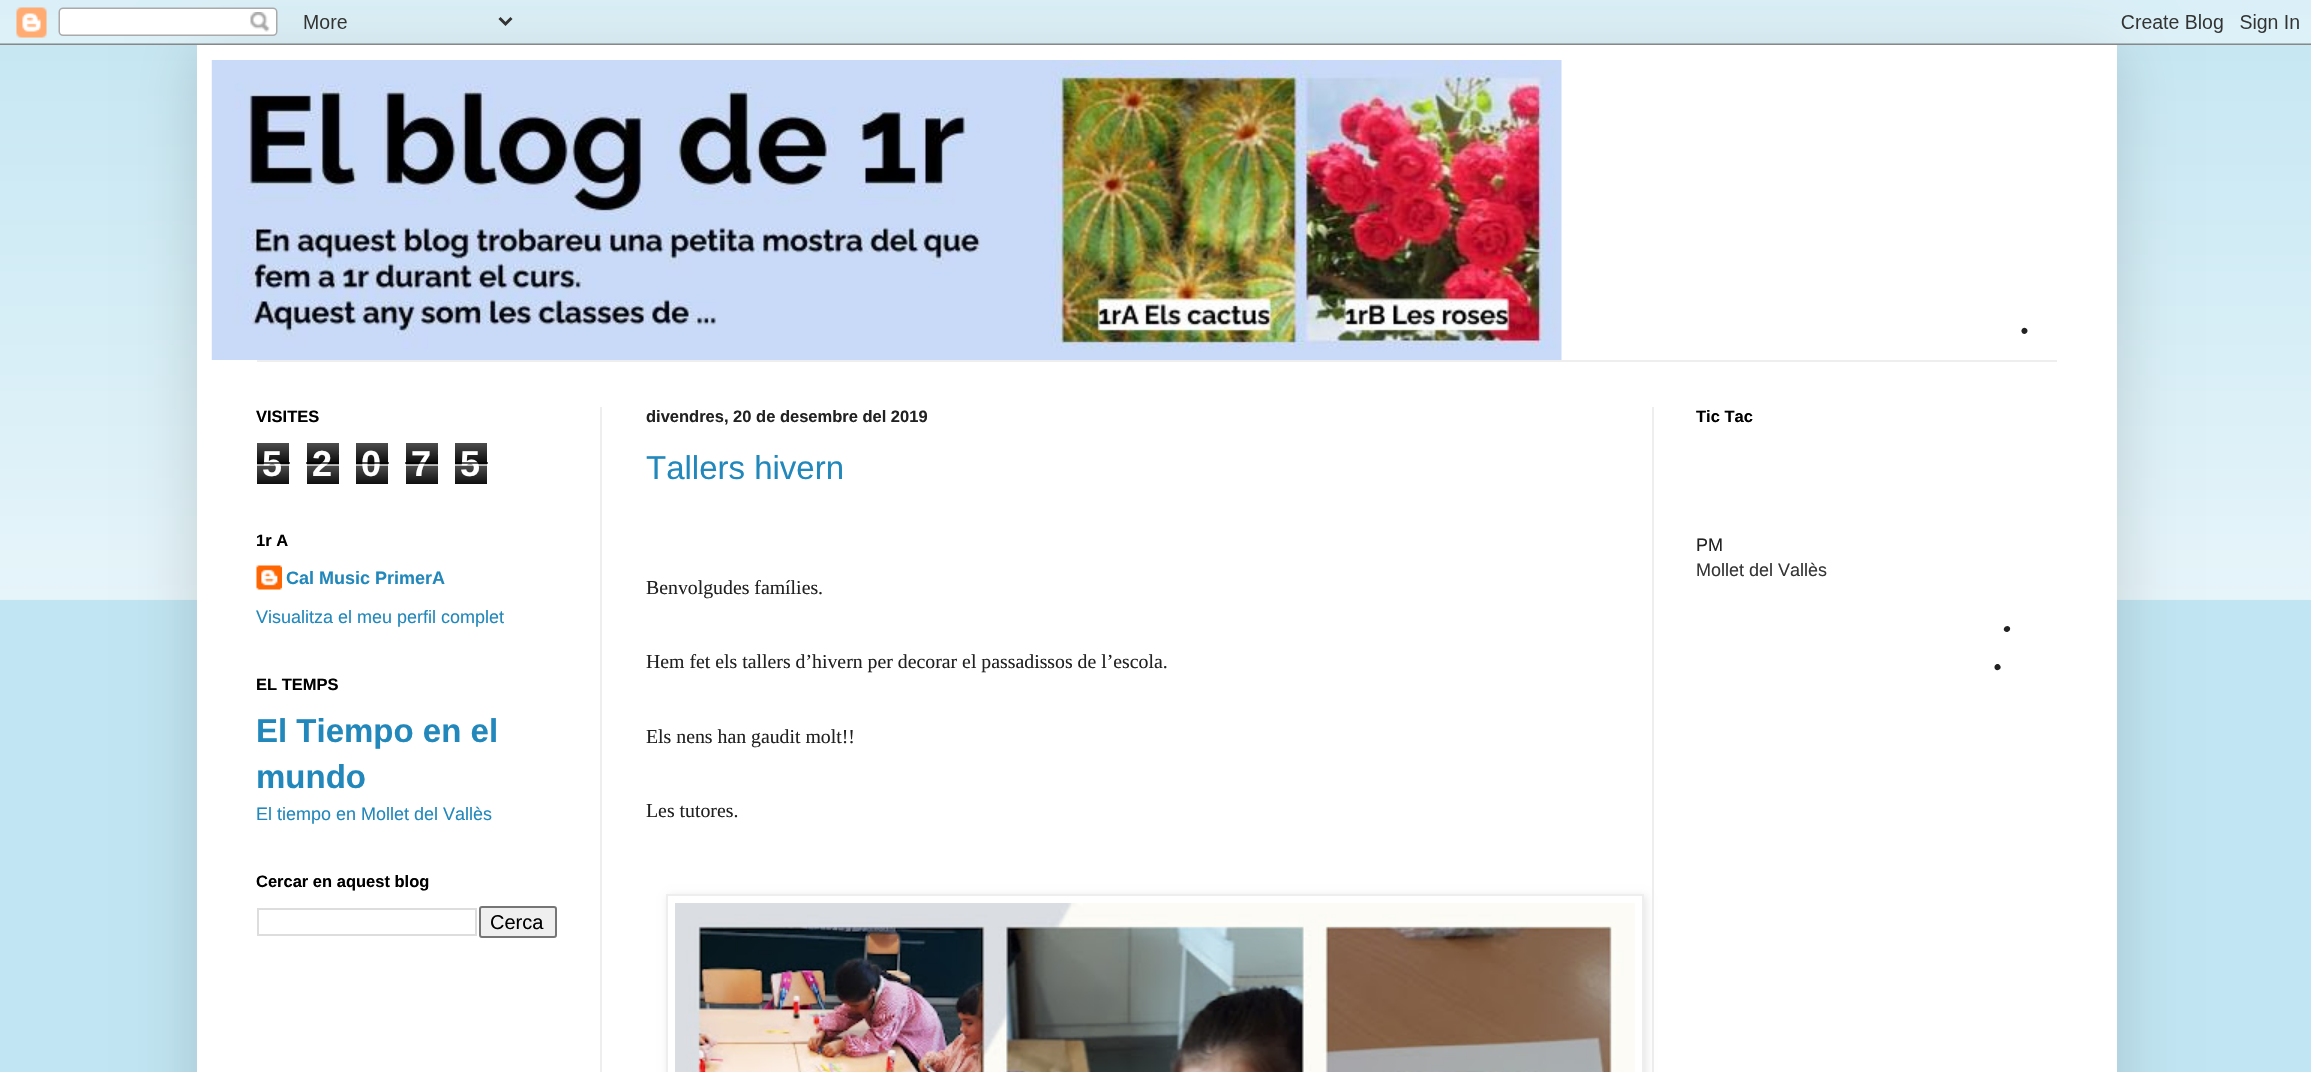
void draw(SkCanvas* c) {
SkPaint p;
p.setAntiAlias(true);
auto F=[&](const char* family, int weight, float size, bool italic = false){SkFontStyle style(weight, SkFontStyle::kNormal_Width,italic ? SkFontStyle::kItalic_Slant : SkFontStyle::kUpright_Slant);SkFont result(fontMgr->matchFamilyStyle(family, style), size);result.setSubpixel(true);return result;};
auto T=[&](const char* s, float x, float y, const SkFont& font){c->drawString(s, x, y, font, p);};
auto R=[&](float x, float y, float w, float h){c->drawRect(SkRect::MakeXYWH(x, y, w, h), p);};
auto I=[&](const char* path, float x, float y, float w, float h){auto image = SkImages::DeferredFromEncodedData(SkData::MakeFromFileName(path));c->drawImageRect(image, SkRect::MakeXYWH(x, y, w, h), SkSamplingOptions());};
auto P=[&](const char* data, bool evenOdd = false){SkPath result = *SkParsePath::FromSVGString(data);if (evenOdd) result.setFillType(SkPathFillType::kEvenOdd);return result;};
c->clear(0xffc1e5f2);
I("2.png",0,15,2311,585);
p.setColor(0x26000000);
p.setMaskFilter(SkMaskFilter::MakeBlur(kNormal_SkBlurStyle, 30));
c->drawRect(SkRect::MakeXYWH(197,45,1920,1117),p);
p.setMaskFilter(nullptr);
I("1.png",0,0,2311,45);
p.setColor(0xffffffff);
R(197,45,1920,1027);
I("3.png",211,60,1351,300);
p.setColor(0xffeeeeee);
R(257,360,1800,2);
R(600,407,2,665);
R(1652,407,2,665);
auto f1 = F("Liberation Sans",700,16.5);
p.setColor(0xff000000);
T("VISITES",256,422,f1);
I("4.png",257,443,32,41);
auto f2 = F("Liberation Sans",700,36);
p.setColor(0xffffffff);
T("5",262,476,f2);
p.setColor(0xa6000000);
R(257,462,33,2);
p.setColor(0xa6ffffff);
R(257,464,33,2);
I("5.png",307,443,32,41);
p.setColor(0xffffffff);
T("2",312,476,f2);
p.setColor(0xa6000000);
R(306,462,33,2);
p.setColor(0xa6ffffff);
R(306,464,33,2);
I("4.png",356,443,32,41);
p.setColor(0xffffffff);
T("0",361,476,f2);
p.setColor(0xa6000000);
R(356,462,33,2);
p.setColor(0xa6ffffff);
R(356,464,33,2);
I("5.png",406,443,32,41);
p.setColor(0xffffffff);
T("7",411,476,f2);
p.setColor(0xa6000000);
R(405,462,33,2);
p.setColor(0xa6ffffff);
R(405,464,33,2);
I("4.png",455,443,32,41);
p.setColor(0xffffffff);
T("5",460,476,f2);
p.setColor(0xa6000000);
R(455,462,33,2);
p.setColor(0xa6ffffff);
R(455,464,33,2);
p.setColor(0xff000000);
T("1r A",256,546,f1);
I("6.png",256,565,26,25);
auto f3 = F("Liberation Sans",700,18);
p.setColor(0xff2288bb);
T("Cal Music PrimerA",286,584,f3);
auto f4 = F("Liberation Sans",400,18);
T("Visualitza el meu perfil complet",256,623,f4);
p.setColor(0xff000000);
T("EL TEMPS",256,690,f1);
auto f5 = F("Liberation Sans",700,33);
p.setColor(0xff2288bb);
T("El Tiempo en el",256,742,f5);
T("mundo",256,788,f5);
T("El tiempo en Mollet del Vallès",256,820,f4);
p.setColor(0xff000000);
T("Cercar en aquest blog",256,887,f1);
p.setStroke(true);
p.setStrokeWidth(2);
p.setColor(0xffdddddd);
c->drawRect(SkRect::MakeXYWH(258,909,218,26),p);
p.setStroke(false);
p.setColor(0xffefefef);
c->drawRoundRect(SkRect::MakeXYWH(480,907,76,30),2,2,p);
p.setStroke(true);
p.setColor(0xff767676);
c->drawRoundRect(SkRect::MakeXYWH(480,907,76,30),2,2,p);
auto f6 = F("Liberation Sans",400,20);
p.setStroke(false);
p.setColor(0xff000000);
T("Cerca",490,929,f6);
p.setColor(0xff222222);
T("divendres, 20 de desembre del 2019",646,422,f1);
auto f7 = F("Liberation Sans",400,33);
p.setColor(0xff2288bb);
T("Tallers hivern",646,479,f7);
auto f8 = F("Liberation Serif",400,19.8);
p.setColor(0xff222222);
T("Benvolgudes famílies.",646,594,f8);
T("Hem fet els tallers d’hivern per decorar el passadissos de l’escola.",646,668,f8);
T("Els nens han gaudit molt!!",646,743,f8);
T("Les tutores.",646,817,f8);
c->save();
c->clipPath(P("M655 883h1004v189h-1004zm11 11h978v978h-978z",true),true);
p.setColor(0x1a000000);
p.setMaskFilter(SkMaskFilter::MakeBlur(kNormal_SkBlurStyle, 4));
c->drawRect(SkRect::MakeXYWH(668,896,978,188),p);
p.setMaskFilter(nullptr);
c->restore();
p.setStroke(true);
p.setColor(0xffeeeeee);
c->drawRect(SkRect::MakeXYWH(667,895,976,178),p);
I("7.png",675,903,960,169);
p.setStroke(false);
p.setColor(0xff000000);
T("Tic Tac",1696,422,f1);
p.setColor(0xff222222);
T("PM",1696,551,f4);
c->drawPath(P("M2026.5 333c-3 3-7-1.5-4-4.5c3-2.5 7 2 4 4.5z"),p);
c->drawPath(P("M2004.5 631c-2.5-3 2.5-7 5-4c2.5 3-2.5 7-5 4zm-9.5 38c-2-3.5 2.5-7 5-3.5c2.5 3-2.5 6.5-5 3.5z"),p);
p.setColor(0xff363636);
T("Mollet del Vallès",1696,576,f4);
}
